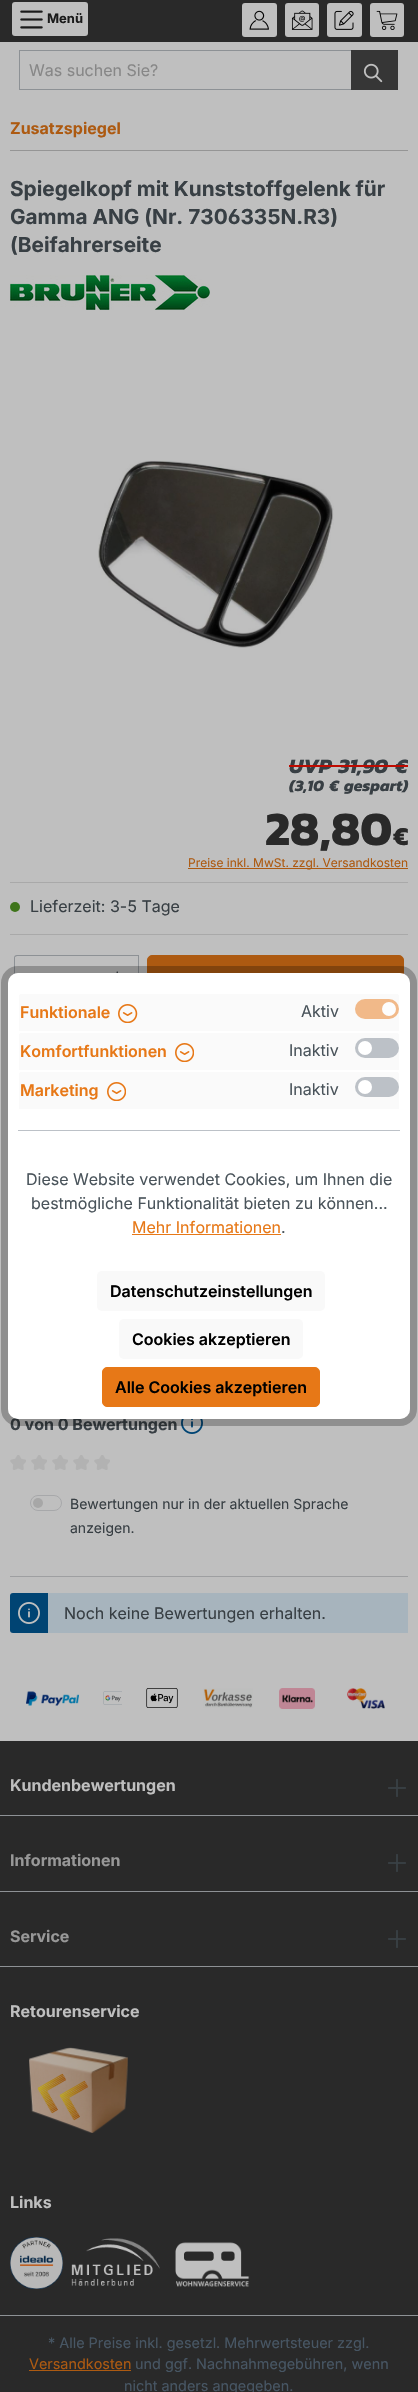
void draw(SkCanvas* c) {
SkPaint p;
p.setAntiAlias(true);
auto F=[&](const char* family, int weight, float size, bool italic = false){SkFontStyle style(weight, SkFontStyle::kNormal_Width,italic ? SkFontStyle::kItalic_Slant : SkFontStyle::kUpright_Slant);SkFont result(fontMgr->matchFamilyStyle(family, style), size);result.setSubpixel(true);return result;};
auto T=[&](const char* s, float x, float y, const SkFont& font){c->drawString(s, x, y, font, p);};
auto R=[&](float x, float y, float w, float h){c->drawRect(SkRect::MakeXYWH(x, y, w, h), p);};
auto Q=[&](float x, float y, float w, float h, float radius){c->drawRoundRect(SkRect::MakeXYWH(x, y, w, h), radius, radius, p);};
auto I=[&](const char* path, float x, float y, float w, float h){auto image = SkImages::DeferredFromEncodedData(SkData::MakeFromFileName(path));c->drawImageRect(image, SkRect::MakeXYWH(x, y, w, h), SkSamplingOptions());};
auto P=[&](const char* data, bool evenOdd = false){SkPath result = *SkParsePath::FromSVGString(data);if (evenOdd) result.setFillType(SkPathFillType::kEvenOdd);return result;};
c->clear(0xffbfbfbf);
p.setColor(0xff292929);
R(0,0,418,42);
p.setColor(0xffbfbfbf);
Q(12,2,76,34,3);
I("1.png",20,10,23,19);
auto f1 = F("Inter",700,13);
p.setColor(0xff1b1b1b);
T("Menü",47,23,f1);
p.setColor(0xffbfbfbf);
Q(242,3,35,34,3);
I("2.png",249,10,20,20);
Q(285,3,34,34,3);
I("3.png",291,10,22,20);
Q(327,3,35,34,3);
I("4.png",334,10,20,20);
Q(370,3,34,34,3);
I("5.png",376,10,22,20);
p.setColor(0xff8d9195);
R(19,50,333,1);
R(19,89,333,1);
R(19,50,1,40);
auto f2 = F("Inter",400,16);
p.setColor(0xff878787);
T("Was suchen Sie?",29,76,f2);
p.setColor(0xff363636);
R(351,50,47,40);
I("6.png",363,63,20,20);
p.setColor(0xff959595);
R(10,150,398,1);
auto f3 = F("Inter",700,16);
p.setColor(0xffad5a11);
T("Zusatzspiegel",10,134,f3);
auto f4 = F("Inter",700,20.75);
p.setColor(0xff383f44);
T("Spiegelkopf mit Kunststoffgelenk für",10,196,f4);
auto f5 = F("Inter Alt",700,20.75);
T("Gamma ANG (Nr. 7306335N.R3)",10,224,f5);
T("(Beifahrerseite",10,252,f4);
I("7.png",10,275,200,35);
I("8.png",98,460,236,188);
c->save();
c->clipRect(SkRect::MakeXYWH(10,756,398,98));
auto f6 = F("Kanit",700,20.75,true);
T("UVP 31,90 €",289,773,f6);
c->restore();
p.setColor(0xffbf0a00);
R(289,765,119,2);
auto f7 = F("Kanit",700,16,true);
p.setColor(0xff383f44);
T("(3,10 € gespart)",289,791,f7);
auto f8 = F("Kanit",700,48);
p.setColor(0xff292929);
T("28,80",265,845,f8);
auto f9 = F("Kanit",700,26);
T("€",393,845,f9);
p.setColor(0xffad5a11);
R(188,868,220,1);
auto f10 = F("Inter",400,12);
T("Preise inkl. MwSt. zzgl. Versandkosten",188,867,f10);
p.setColor(0xffa9a9a9);
R(10,882,398,1);
p.setColor(0xff3e741a);
c->drawCircle(15,907,5,p);
p.setColor(0xff383f44);
T("Lieferzeit: 3-5 Tage",30,912,f2);
p.setColor(0xffa9a9a9);
R(10,934,398,1);
p.setColor(0xff8d9195);
R(55,955,84,1);
c->drawPath(P("M17 955h39v44h-39c-2 0-3-1-3-3v-38c0-2 1-3 3-3zm0 1h39v42h-32c-13 0-9 0-9-15v-26z",true),p);
R(138,955,1,18);
I("9.png",116,971,2,2);
p.setColor(0xffad5a11);
c->drawRoundRect(SkRect::MakeXYWH(147.5,955.5,256,43),4.5,4.5,p);
p.setStroke(true);
p.setStrokeWidth(1);
c->drawRoundRect(SkRect::MakeXYWH(147.5,955.5,256,43),4.5,4.5,p);
p.setStroke(false);
p.setColor(0xff383f44);
T("0 von 0 Bewertungen",10,1430,f3);
I("10.png",181,1419,22,15);
I("11.png",10,1455,16,15);
I("11.png",31,1455,16,15);
I("11.png",52,1455,16,15);
I("11.png",73,1455,16,15);
I("11.png",94,1455,16,15);
p.setColor(0xffa7a7a7);
c->drawCircle(38,1503,5,p);
p.setStroke(true);
p.setColor(0xffa7a8aa);
c->drawRoundRect(SkRect::MakeXYWH(30.5,1495.5,31,15),7.5,7.5,p);
auto f11 = F("Inter",400,14);
p.setStroke(false);
p.setColor(0xff383f44);
T("Bewertungen nur in der aktuellen Sprache",70,1509,f11);
T("anzeigen.",70,1533,f11);
p.setColor(0xff9e9fa1);
R(10,1576,398,1);
p.setColor(0xff004473);
Q(10,1593,398,40,3);
I("12.png",18,1602,22,22);
p.setColor(0xffa7b4bd);
R(48,1593,360,40);
p.setColor(0xff383f44);
T("Noch keine Bewertungen erhalten.",64,1619,f2);
p.setStroke(true);
p.setStrokeWidth(7);
p.setColor(0x40000000);
c->drawRoundRect(SkRect::MakeXYWH(4.5,969.5,409,453),13.5,13.5,p);
p.setStroke(false);
p.setColor(0xffffffff);
Q(8,973,402,446,10);
p.setColor(0xffbcc1c7);
R(18,1130,382,1);
p.setColor(0xfffafafa);
c->drawPath(P("M21 994h376c1 0 2 1 2 2v35h-380v-35c0-1 1-2 2-2z"),p);
auto f12 = F("Inter",600,16);
p.setColor(0xffe77817);
T("Funktionale",20,1018,f12);
I("13.png",118,1004,20,19);
p.setColor(0xff4a545b);
T("Aktiv",301,1017,f2);
p.setColor(0xfff1b989);
Q(355,999,44,20,10);
p.setColor(0xfffdfdfd);
c->drawCircle(389,1009,7,p);
p.setColor(0xfffafafa);
c->drawPath(P("M21 1033h376c1 0 2 1 2 2v35h-380v-35c0-1 1-2 2-2z"),p);
p.setColor(0xffe77817);
T("Komfortfunktionen",20,1057,f12);
I("14.png",175,1043,19,19);
p.setColor(0xff4a545b);
T("Inaktiv",289,1056,f2);
p.setColor(0xffbcc1c7);
Q(355,1038,44,20,10);
p.setColor(0xffffffff);
c->drawCircle(365,1048,7,p);
p.setColor(0xfffafafa);
c->drawPath(P("M21 1072h376c1 0 2 1 2 2v35h-380v-35c0-1 1-2 2-2z"),p);
p.setColor(0xffe77817);
T("Marketing",20,1096,f12);
I("14.png",107,1082,19,19);
p.setColor(0xff4a545b);
T("Inaktiv",289,1095,f2);
p.setColor(0xffbcc1c7);
Q(355,1077,44,20,10);
p.setColor(0xffffffff);
c->drawCircle(365,1087,7,p);
p.setColor(0xff4a545b);
T("Diese Website verwendet Cookies, um Ihnen die",26,1185,f2);
T("bestmögliche Funktionalität bieten zu können...",31,1209,f2);
p.setColor(0xffe77817);
T("Mehr Informationen",132,1233,f2);
R(132,1234,149,1);
p.setColor(0xff4a545b);
T(".",281,1233,f2);
p.setColor(0xfff9f9f9);
Q(97,1271,228,40,5);
p.setColor(0xff000000);
T("Datenschutzeinstellungen",110,1297,f12);
p.setColor(0xfff9f9f9);
Q(119,1319,184,40,5);
p.setColor(0xff000000);
T("Cookies akzeptieren",132,1345,f12);
p.setColor(0xffe77817);
c->drawRoundRect(SkRect::MakeXYWH(102.5,1367.5,217,39),4.5,4.5,p);
p.setStroke(true);
p.setStrokeWidth(1);
c->drawRoundRect(SkRect::MakeXYWH(102.5,1367.5,217,39),4.5,4.5,p);
p.setStroke(false);
p.setColor(0xff000000);
T("Alle Cookies akzeptieren",115,1393,f12);
p.setColor(0xff292929);
R(0,1741,418,651);
I("15.png",26,1691,53,15);
I("16.png",103,1691,19,14);
I("17.png",146,1688,32,20);
I("18.png",203,1688,50,20);
I("19.png",279,1688,36,21);
I("20.png",347,1688,38,21);
p.setColor(0xff8d9195);
R(0,1815,418,1);
p.setColor(0xffbfbfbf);
T("Kundenbewertungen",10,1791,f3);
I("21.png",388,1779,18,18);
p.setColor(0xff8d9195);
R(0,1891,418,1);
p.setColor(0xff989898);
T("Informationen",10,1866,f3);
I("21.png",388,1854,18,18);
p.setColor(0xff8d9195);
R(0,1966,418,1);
p.setColor(0xff989898);
T("Service",10,1942,f3);
I("21.png",388,1930,18,18);
p.setColor(0xff8d9195);
R(0,2315,418,1);
p.setColor(0xffbfbfbf);
T("Retourenservice",10,2017,f3);
I("22.png",29,2047,99,86);
T("Links",10,2208,f3);
I("23.png",10,2237,53,52);
I("24.png",71,2238,89,48);
I("25.png",175,2242,75,45);
auto f13 = F("Inter",400,14.4);
p.setColor(0xff475664);
T("* Alle Preise inkl. gesetzl. Mehrwertsteuer zzgl.",48,2348,f13);
p.setColor(0xffad5a11);
T("Versandkosten",29,2369,f13);
R(29,2370,102,1);
p.setColor(0xff475664);
T("und ggf. Nachnahmegebühren, wenn",135,2369,f13);
T("nicht anders angegeben.",124,2391,f13);
}
